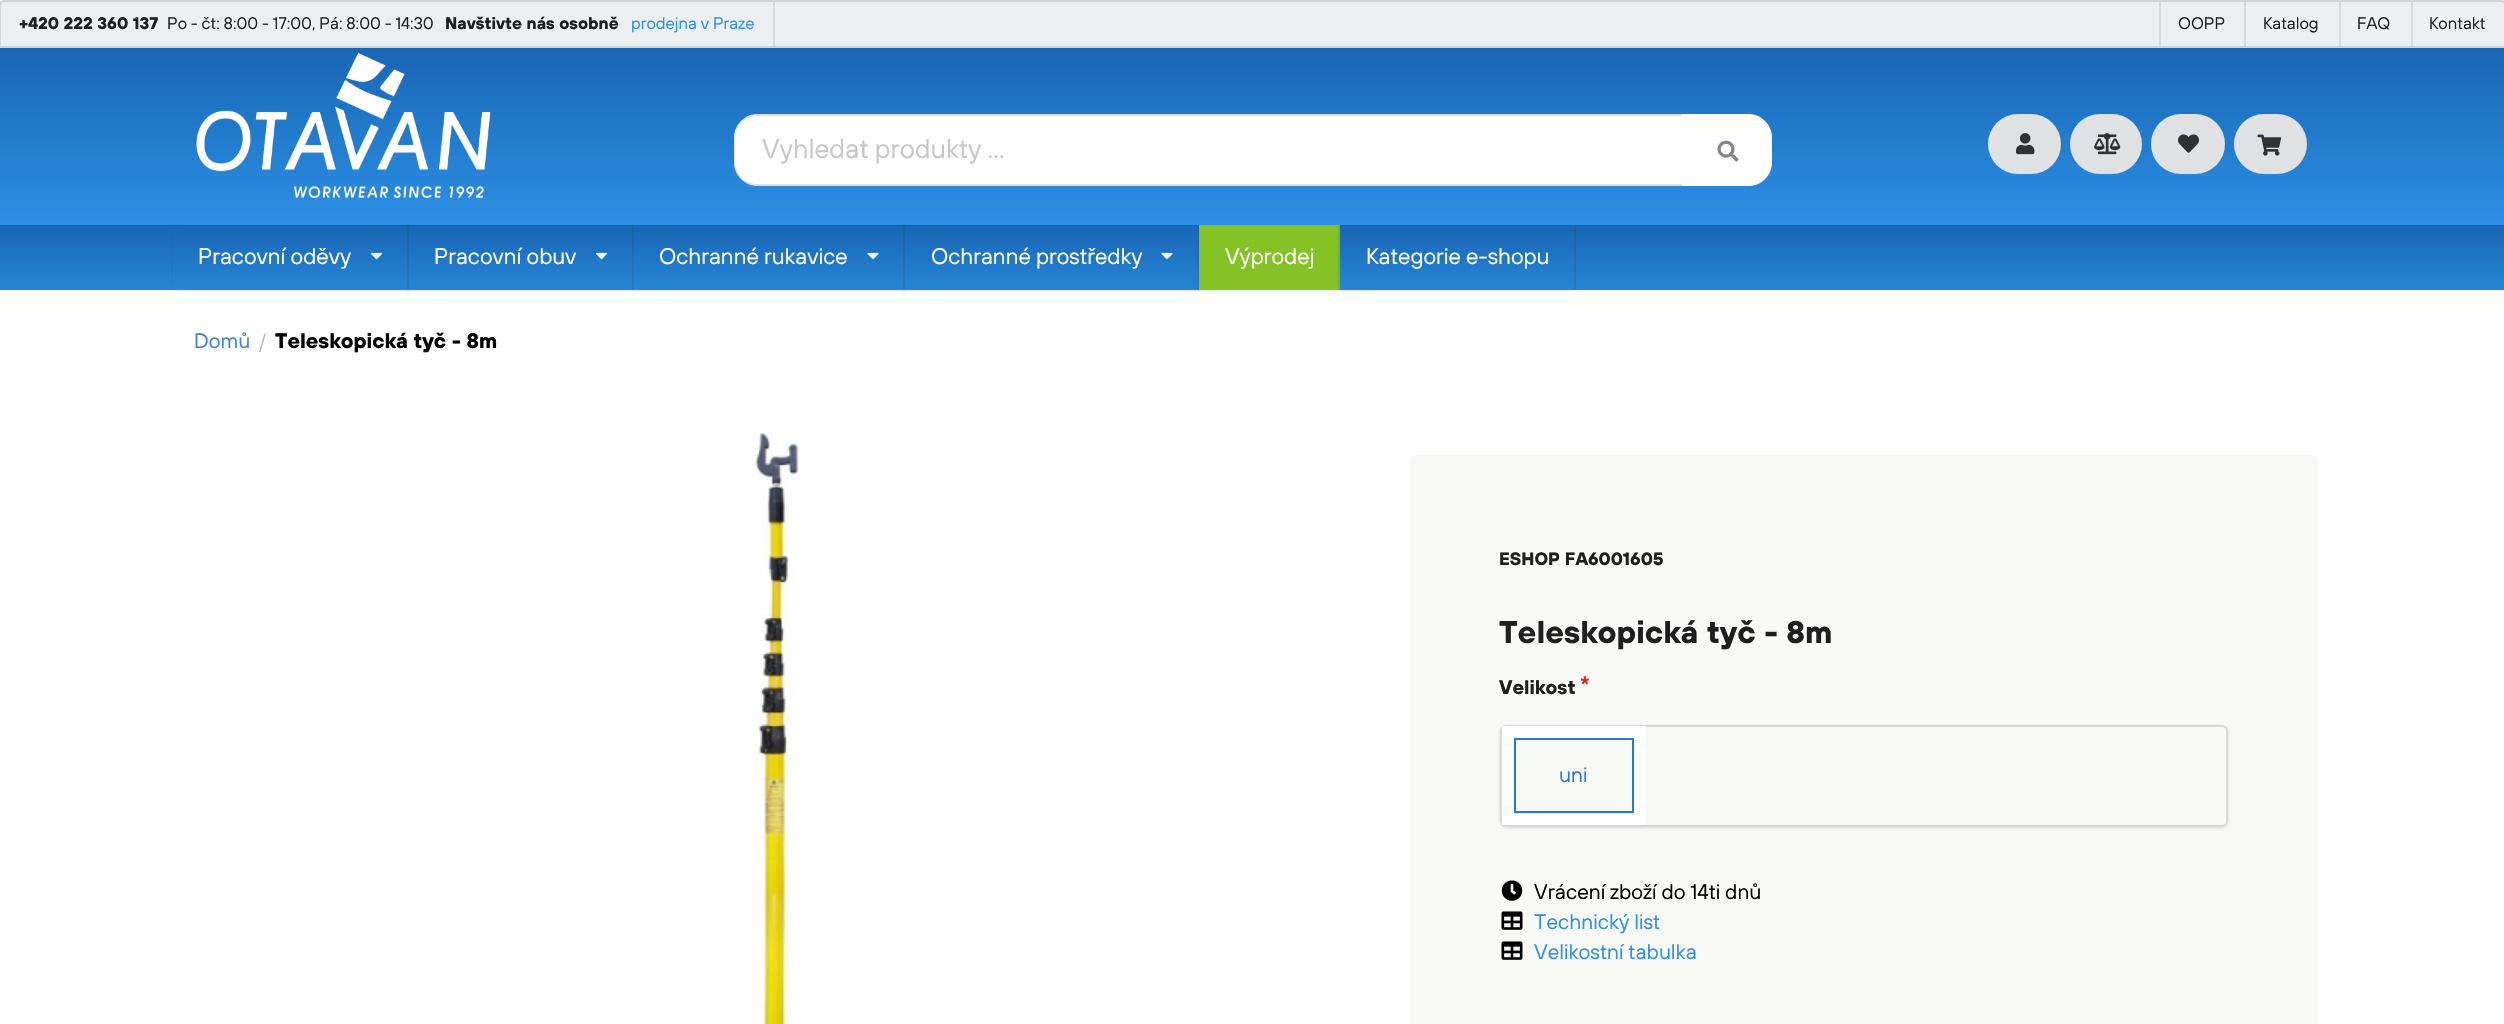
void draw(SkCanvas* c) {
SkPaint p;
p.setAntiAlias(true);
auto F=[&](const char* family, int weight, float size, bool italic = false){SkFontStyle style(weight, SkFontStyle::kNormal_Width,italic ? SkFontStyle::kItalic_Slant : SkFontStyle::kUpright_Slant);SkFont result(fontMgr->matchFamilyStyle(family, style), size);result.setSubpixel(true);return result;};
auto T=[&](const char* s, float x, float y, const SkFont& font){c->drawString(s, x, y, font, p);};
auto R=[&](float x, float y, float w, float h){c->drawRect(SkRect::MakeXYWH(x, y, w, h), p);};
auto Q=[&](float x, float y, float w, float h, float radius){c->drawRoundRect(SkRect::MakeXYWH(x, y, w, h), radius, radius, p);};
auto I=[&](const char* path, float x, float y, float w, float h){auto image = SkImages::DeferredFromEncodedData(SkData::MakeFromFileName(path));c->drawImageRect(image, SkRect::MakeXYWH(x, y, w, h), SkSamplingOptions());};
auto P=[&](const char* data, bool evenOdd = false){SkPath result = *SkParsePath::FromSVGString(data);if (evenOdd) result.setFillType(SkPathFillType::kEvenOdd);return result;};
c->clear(0xffffffff);
p.setColor(0xffeceff0);
c->drawPath(P("M5 1h2496c3 0 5 2 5 5v41h-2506v-41c0-3 2-5 5-5z"),p);
p.setStroke(true);
p.setStrokeWidth(2);
p.setColor(0xffd4d4d5);
c->drawPath(P("M5 1h2496c3 0 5 2 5 5v41h-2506v-41c0-3 2-5 5-5z"),p);
auto f1 = F("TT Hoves",700,16.75);
p.setStroke(false);
p.setColor(0xff1f1f1f);
T("+420 222 360 137",19,29,f1);
auto f2 = F("TT Hoves",400,16.75);
T("Po - čt: 8:00 - 17:00, Pá: 8:00 - 14:30",167,29,f2);
T("Navštivte nás osobně",445,29,f1);
p.setColor(0xff2c90e5);
T("prodejna v Praze",631,29,f2);
p.setColor(0x1a222426);
R(773,2,2,45);
R(2159,2,2,45);
p.setColor(0xff1f1f1f);
T("OOPP",2178,29,f2);
p.setColor(0x1a222426);
R(2244,2,2,45);
p.setColor(0xff1f1f1f);
T("Katalog",2263,29,f2);
p.setColor(0x1a222426);
R(2339,2,2,45);
p.setColor(0xff1f1f1f);
T("FAQ",2357,29,f2);
p.setColor(0x1a222426);
R(2411,2,2,45);
p.setColor(0xff1f1f1f);
T("Kontakt",2429,29,f2);
{
const SkColor colors[] = {0xff1966b4,0xff2c90e5};
const float stops[] = {0,1};
const SkPoint ends[] = {{1253,48}, {1253,225}};
p.setShader(SkGradientShader::MakeLinear(ends, colors, stops, 2, SkTileMode::kClamp));
p.setAlpha(255);
}
R(0,48,2504,177);
I("1.png",196,52,295,147);
p.setShader(nullptr);
p.setColor(0xffffffff);
c->drawPath(P("M758 114h925v72h-925c-13.5 0-24-10.5-24-24v-24c0-13.5 10.5-24 24-24z"),p);
p.setColor(0x26222426);
c->drawPath(P("M758 114c-7 0-13 3-17 7l1 1c4-4 10-6 16-6h923l2-2z"),p);
c->drawPath(P("M1683 186l-2-2h-923c-6 0-12-2-16-6l-1 1c4 4 10 7 17 7z"),p);
c->drawPath(P("M741 121c-8 8-7 19-7 29c0 10-1 21 7 29l1-1c-8-8-7-18-7-28c0-10-1-20 7-28z"),p);
auto f3 = F("TT Hoves",400,27);
p.setColor(0xffc7c7c7);
T("Vyhledat produkty ...",762,158,f3);
p.setColor(0xffffffff);
c->drawPath(P("M1683 114h65c13.5 0 24 10.5 24 24v24c0 13.5-10.5 24-24 24h-65z"),p);
I("2.png",1717,140,22,22);
p.setColor(0xffe0e1e2);
Q(1988,114,73,60,30);
I("3.png",2016,133,19,22);
Q(2070,114,72,60,30);
I("4.png",2094,133,27,22);
Q(2151,114,74,60,30);
I("5.png",2178,134,21,19);
Q(2234,114,73,60,30);
I("6.png",2257,134,25,22);
{
const SkColor colors[] = {0xff1966b4,0xff2685d5};
const float stops[] = {0,1};
const SkPoint ends[] = {{1253,225}, {1253,290}};
p.setShader(SkGradientShader::MakeLinear(ends, colors, stops, 2, SkTileMode::kClamp));
p.setAlpha(255);
}
R(0,225,2504,65);
c->save();
c->clipPath(P("M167 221h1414v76h-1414zm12 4h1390c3.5 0 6 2.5 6 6v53c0 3.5-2.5 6-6 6h-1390c-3.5 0-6-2.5-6-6v-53c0-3.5 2.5-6 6-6z",true),true);
p.setShader(nullptr);
p.setColor(0x26222426);
p.setMaskFilter(SkMaskFilter::MakeBlur(kNormal_SkBlurStyle, 1.5));
c->drawRoundRect(SkRect::MakeXYWH(173,227,1402,64),6,6,p);
p.setMaskFilter(nullptr);
c->restore();
auto f4 = F("TT Hoves",400,22.5);
p.setColor(0xffffffff);
T("Pracovní oděvy",198,264,f4);
I("7.png",371,252,12,8);
p.setColor(0x1a222426);
R(407,225,2,65);
p.setColor(0xffffffff);
T("Pracovní obuv",434,264,f4);
I("7.png",596,252,12,8);
p.setColor(0x1a222426);
R(632,225,2,65);
p.setColor(0xffffffff);
T("Ochranné rukavice",659,264,f4);
I("8.png",867,252,12,8);
p.setColor(0x1a222426);
R(903,225,2,65);
p.setColor(0xffffffff);
T("Ochranné prostředky",931,264,f4);
I("8.png",1161,252,12,8);
p.setColor(0x1a222426);
R(1197,225,2,65);
p.setColor(0xff84c225);
R(1199,225,139,65);
p.setColor(0xffffffff);
T("Výprodej",1225,264,f4);
p.setColor(0xff7ab225);
R(1338,225,2,65);
p.setColor(0xffffffff);
T("Kategorie e-shopu",1366,264,f4);
p.setColor(0x1a222426);
R(1574,225,2,65);
auto f5 = F("TT Hoves",400,21);
p.setColor(0xff4183c4);
T("Domů",194,348,f5);
auto f6 = F("TT Hoves",400,19.5);
p.setColor(0xffb8b8b8);
T("/",259,348,f6);
auto f7 = F("TT Hoves",700,21);
p.setColor(0xff000000);
T("Teleskopická tyč - 8m",275,348,f7);
I("9.png",755,433,46,591);
p.setColor(0xfff8f8f7);
Q(1410,455,908,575,6);
auto f8 = F("TT Hoves",700,18);
p.setColor(0xff1f1f1f);
T("ESHOP FA6001605",1499,565,f8);
auto f9 = F("TT Hoves",700,31.5);
T("Teleskopická tyč - 8m",1499,643,f9);
auto f10 = F("TT Hoves",700,19.5);
T("Velikost",1499,694,f10);
p.setColor(0xffdb2828);
T("*",1580,690,f10);
p.setColor(0x26222426);
p.setMaskFilter(SkMaskFilter::MakeBlur(kNormal_SkBlurStyle, 1.5));
c->drawRoundRect(SkRect::MakeXYWH(1500,726,728,102),6,6,p);
p.setMaskFilter(nullptr);
p.setColor(0xfff8f8f7);
Q(1500,725,728,102,6);
p.setStroke(true);
p.setColor(0x26222426);
c->drawRoundRect(SkRect::MakeXYWH(1501,726,726,100),5,5,p);
p.setStroke(false);
p.setColor(0xffffffff);
R(1502,726,144,99);
p.setColor(0xfff8f8f7);
c->drawRect(SkRect::MakeXYWH(1515,739,118,73),p);
p.setStroke(true);
p.setColor(0xff2478d6);
c->drawRect(SkRect::MakeXYWH(1515,739,118,73),p);
p.setStroke(false);
T("uni",1559,782,f5);
I("10.png",1501,880,22,21);
p.setColor(0xff000000);
T("Vrácení zboží do 14ti dnů",1534,899,f5);
I("11.png",1501,911,22,19);
p.setColor(0xff2c90e5);
T("Technický list",1534,929,f5);
I("11.png",1501,941,22,19);
T("Velikostní tabulka",1534,959,f5);
}
